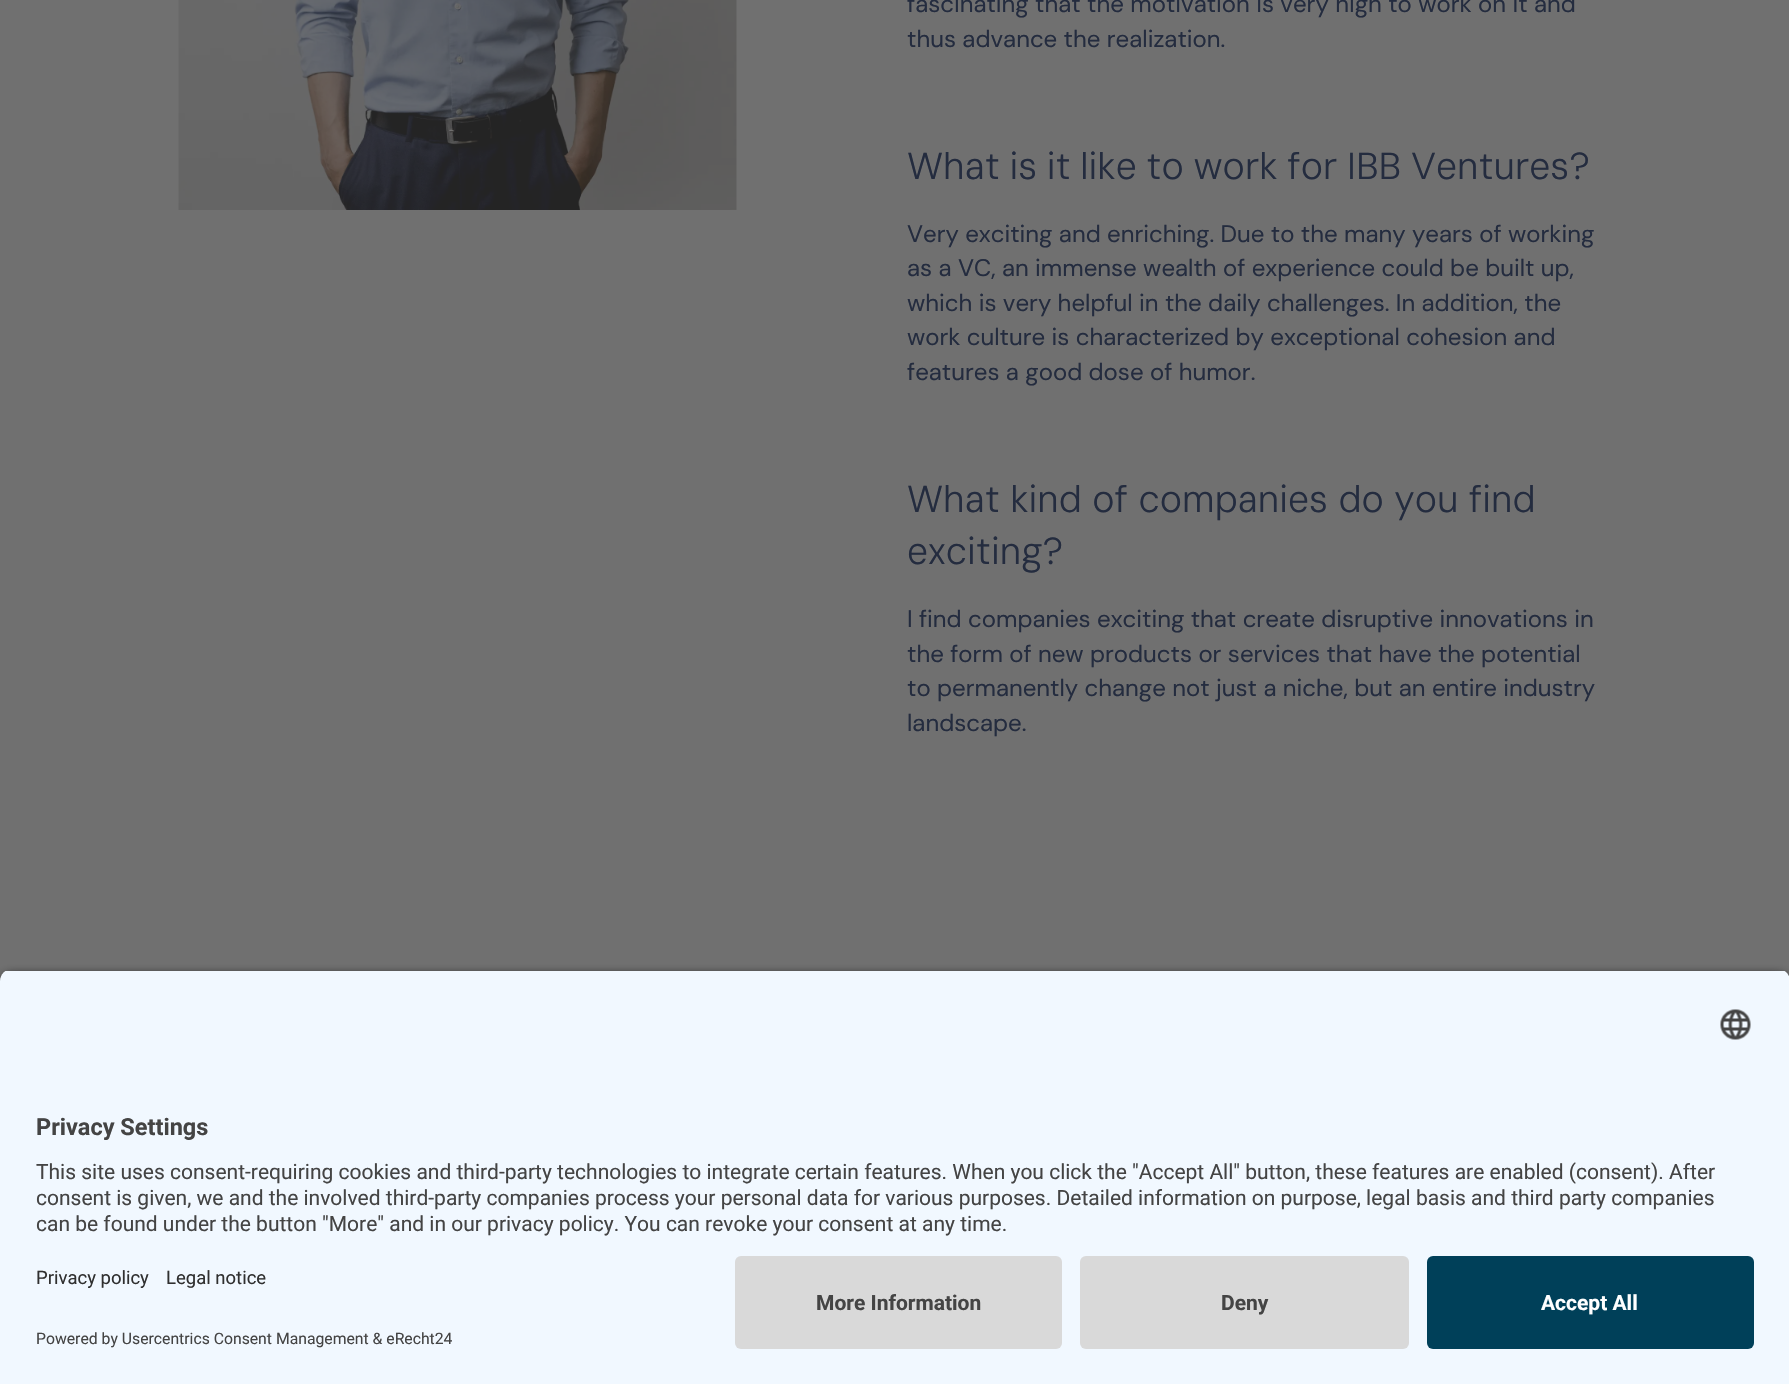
void draw(SkCanvas* c) {
SkPaint p;
p.setAntiAlias(true);
auto F=[&](const char* family, int weight, float size, bool italic = false){SkFontStyle style(weight, SkFontStyle::kNormal_Width,italic ? SkFontStyle::kItalic_Slant : SkFontStyle::kUpright_Slant);SkFont result(fontMgr->matchFamilyStyle(family, style), size);result.setSubpixel(true);return result;};
auto T=[&](const char* s, float x, float y, const SkFont& font){c->drawString(s, x, y, font, p);};
auto L=[&](const char* s, float x, float y, const SkFont& font, const SkPaint& ink, float letter, float word){std::vector<SkGlyphID> glyphs(font.countText(s, strlen(s), SkTextEncoding::kUTF8));std::vector<float> xs(glyphs.size());font.textToGlyphs(s, strlen(s), SkTextEncoding::kUTF8, glyphs);font.getXPos(glyphs, xs, x);float extra = 0;for (size_t i = 0; i < glyphs.size(); i++) {xs[i] += extra;extra += letter + word * (glyphs[i] == font.unicharToGlyph(' '));}c->drawTextBlob(SkTextBlob::MakeFromPosHGlyphs(glyphs, xs, y, font), 0, 0, ink);};
auto R=[&](float x, float y, float w, float h){c->drawRect(SkRect::MakeXYWH(x, y, w, h), p);};
auto Q=[&](float x, float y, float w, float h, float radius){c->drawRoundRect(SkRect::MakeXYWH(x, y, w, h), radius, radius, p);};
auto I=[&](const char* path, float x, float y, float w, float h){auto image = SkImages::DeferredFromEncodedData(SkData::MakeFromFileName(path));c->drawImageRect(image, SkRect::MakeXYWH(x, y, w, h), SkSamplingOptions());};
auto P=[&](const char* data, bool evenOdd = false){SkPath result = *SkParsePath::FromSVGString(data);if (evenOdd) result.setFillType(SkPathFillType::kEvenOdd);return result;};
c->clear(0xff707070);
I("1.png",178,0,559,210);
auto f1 = F("DM Sans",400,24);
p.setColor(0xff242c3f);
T("fascinating that the motivation is very high to work on it and",907,12,f1);
T("thus advance the realization.",907,47,f1);
auto f2 = F("DM Sans",300,37.5);
L("What is it like to work for IBB Ventures?",907,179,f2,p,0,-.75);
T("Very exciting and enriching. Due to the many years of working",907,242,f1);
T("as a VC, an immense wealth of experience could be built up,",907,276,f1);
T("which is very helpful in the daily challenges. In addition, the",907,311,f1);
T("work culture is characterized by exceptional cohesion and",907,345,f1);
T("features a good dose of humor.",907,380,f1);
T("What kind of companies do you find",907,512,f2);
T("exciting?",907,564,f2);
T("I find companies exciting that create disruptive innovations in",907,627,f1);
T("the form of new products or services that have the potential",907,662,f1);
T("to permanently change not just a niche, but an entire industry",907,696,f1);
T("landscape.",907,731,f1);
p.setColor(0xcc000000);
p.setMaskFilter(SkMaskFilter::MakeBlur(kNormal_SkBlurStyle, 5));
c->drawRoundRect(SkRect::MakeXYWH(0,974,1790,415),12,12,p);
p.setMaskFilter(nullptr);
c->save();
c->clipPath(P("M12 969h1766c6.5 0 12 5.5 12 12v263h-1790v-263c0-6.5 5.5-12 12-12z"),true);
p.setColor(0xfff1f8ff);
R(0,971,1789,273);
c->restore();
I("2.png",1720,1009,31,31);
auto f3 = F("Roboto",700,23.5);
p.setColor(0xff444444);
T("Privacy Settings",36,1135,f3);
auto f4 = F("Roboto",400,21);
T("This site uses consent-requiring cookies and third-party technologies to integrate certain features. When you click the \"Accept All\" button, these features are enabled (consent). After",36,1179,f4);
T("consent is given, we and the involved third-party companies process your personal data for various purposes. Detailed information on purpose, legal basis and third party companies",36,1205,f4);
T("can be found under the button \"More\" and in our privacy policy. You can revoke your consent at any time.",36,1231,f4);
p.setColor(0xfff1f8ff);
R(0,1244,1789,140);
auto f5 = F("Roboto",400,18.5);
p.setColor(0xff303030);
T("Privacy policy",36,1284,f5);
T("Legal notice",166,1284,f5);
auto f6 = F("Roboto",400,15.75);
p.setColor(0xff444444);
T("Powered by Usercentrics Consent Management & eRecht24",36,1344,f6);
p.setColor(0xffd9d9d9);
Q(735,1256,327,93,6);
auto f7 = F("Roboto",700,21);
p.setColor(0xff444444);
T("More Information",816,1310,f7);
p.setColor(0xffd9d9d9);
Q(1080,1256,329,93,6);
p.setColor(0xff444444);
T("Deny",1221,1310,f7);
p.setColor(0xff004059);
Q(1427,1256,327,93,6);
p.setColor(0xffffffff);
T("Accept All",1541,1310,f7);
}
